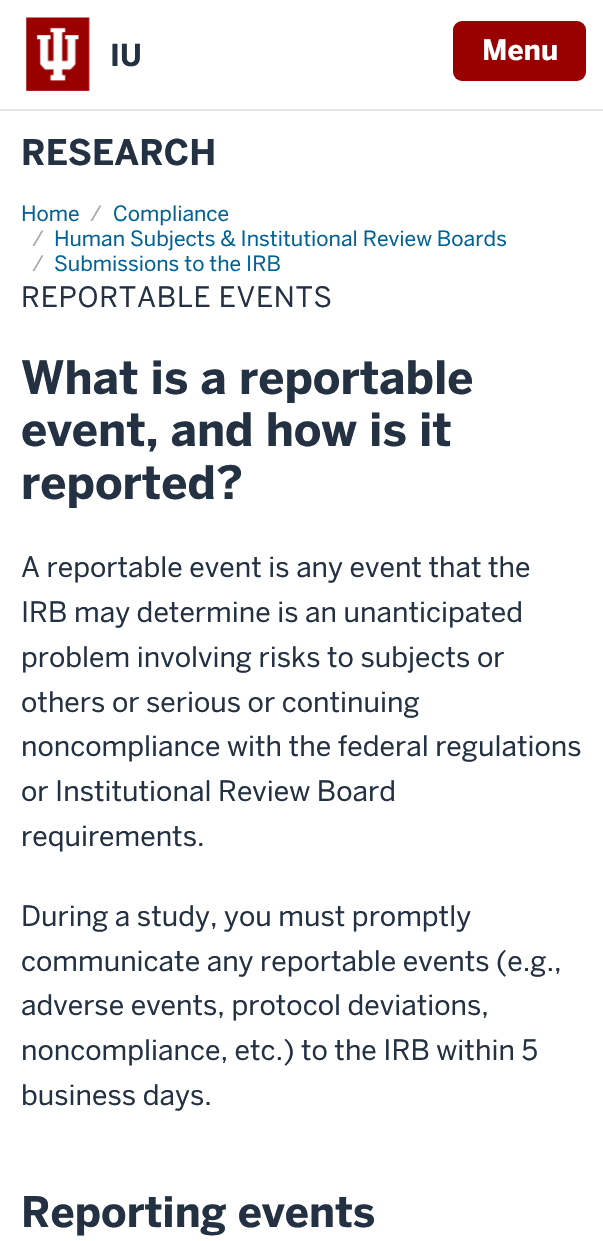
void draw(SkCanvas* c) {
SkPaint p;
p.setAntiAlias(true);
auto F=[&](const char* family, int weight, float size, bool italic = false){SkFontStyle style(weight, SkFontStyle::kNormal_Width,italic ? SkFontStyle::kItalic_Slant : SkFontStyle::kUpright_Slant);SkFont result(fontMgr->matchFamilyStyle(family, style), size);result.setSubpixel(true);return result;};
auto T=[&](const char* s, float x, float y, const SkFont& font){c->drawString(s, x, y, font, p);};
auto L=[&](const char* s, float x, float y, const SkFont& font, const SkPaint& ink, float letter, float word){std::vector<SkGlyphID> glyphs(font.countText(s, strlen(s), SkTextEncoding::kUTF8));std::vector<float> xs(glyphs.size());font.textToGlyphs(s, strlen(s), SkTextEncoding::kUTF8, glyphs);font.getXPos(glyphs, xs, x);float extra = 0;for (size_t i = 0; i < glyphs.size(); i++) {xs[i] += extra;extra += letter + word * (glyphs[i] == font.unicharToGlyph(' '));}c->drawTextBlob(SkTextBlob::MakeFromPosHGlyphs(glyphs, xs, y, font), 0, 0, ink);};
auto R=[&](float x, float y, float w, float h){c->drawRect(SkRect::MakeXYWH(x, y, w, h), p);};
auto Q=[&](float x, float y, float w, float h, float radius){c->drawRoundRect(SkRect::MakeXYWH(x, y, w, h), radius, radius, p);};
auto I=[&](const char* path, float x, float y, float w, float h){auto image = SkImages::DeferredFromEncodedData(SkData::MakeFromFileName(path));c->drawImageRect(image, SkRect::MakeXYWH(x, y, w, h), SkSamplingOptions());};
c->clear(0xffffffff);
p.setColor(0xffe2e7e9);
R(0,109,603,2);
I("1.png",26,17,64,74);
auto f1 = F("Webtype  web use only",700,30);
p.setColor(0xff243142);
T("IU",110,66,f1);
p.setColor(0xff990000);
Q(453,21,133,60,9);
auto f2 = F("Webtype  web use only",700,28);
p.setColor(0xffffffff);
T("Menu",482,60,f2);
auto f3 = F("Webtype  web use only",700,35);
p.setColor(0xff243142);
T("RESEARCH",21,165,f3);
auto f4 = F("Webtype  web use only",400,21);
p.setColor(0xff006298);
T("Home",21,221,f4);
p.setColor(0xffaaaaaa);
T("/",90,221,f4);
p.setColor(0xff006298);
T("Compliance",113,221,f4);
p.setColor(0xffaaaaaa);
T("/",32,246,f4);
p.setColor(0xff006298);
T("Human Subjects & Institutional Review Boards",54,246,f4);
p.setColor(0xffaaaaaa);
T("/",32,271,f4);
p.setColor(0xff006298);
T("Submissions to the IRB",54,271,f4);
auto f5 = F("Webtype  web use only",400,28);
p.setColor(0xff243142);
L("REPORTABLE EVENTS",21,307,f5,p,.75,0);
auto f6 = F("Webtype  web use only",700,45.5);
T("What is a reportable",21,394,f6);
T("event, and how is it",21,446,f6);
T("reported?",21,499,f6);
T("A reportable event is any event that the",21,577,f5);
T("IRB may determine is an unanticipated",21,622,f5);
T("problem involving risks to subjects or",21,667,f5);
T("others or serious or continuing",21,712,f5);
T("noncompliance with the federal regulations",21,756,f5);
T("or Institutional Review Board",21,801,f5);
T("requirements.",21,846,f5);
T("During a study, you must promptly",21,926,f5);
T("communicate any reportable events (e.g.,",21,971,f5);
T("adverse events, protocol deviations,",21,1015,f5);
T("noncompliance, etc.) to the IRB within 5",21,1060,f5);
T("business days.",21,1105,f5);
auto f7 = F("Webtype  web use only",700,42);
T("Reporting events",21,1227,f7);
}
